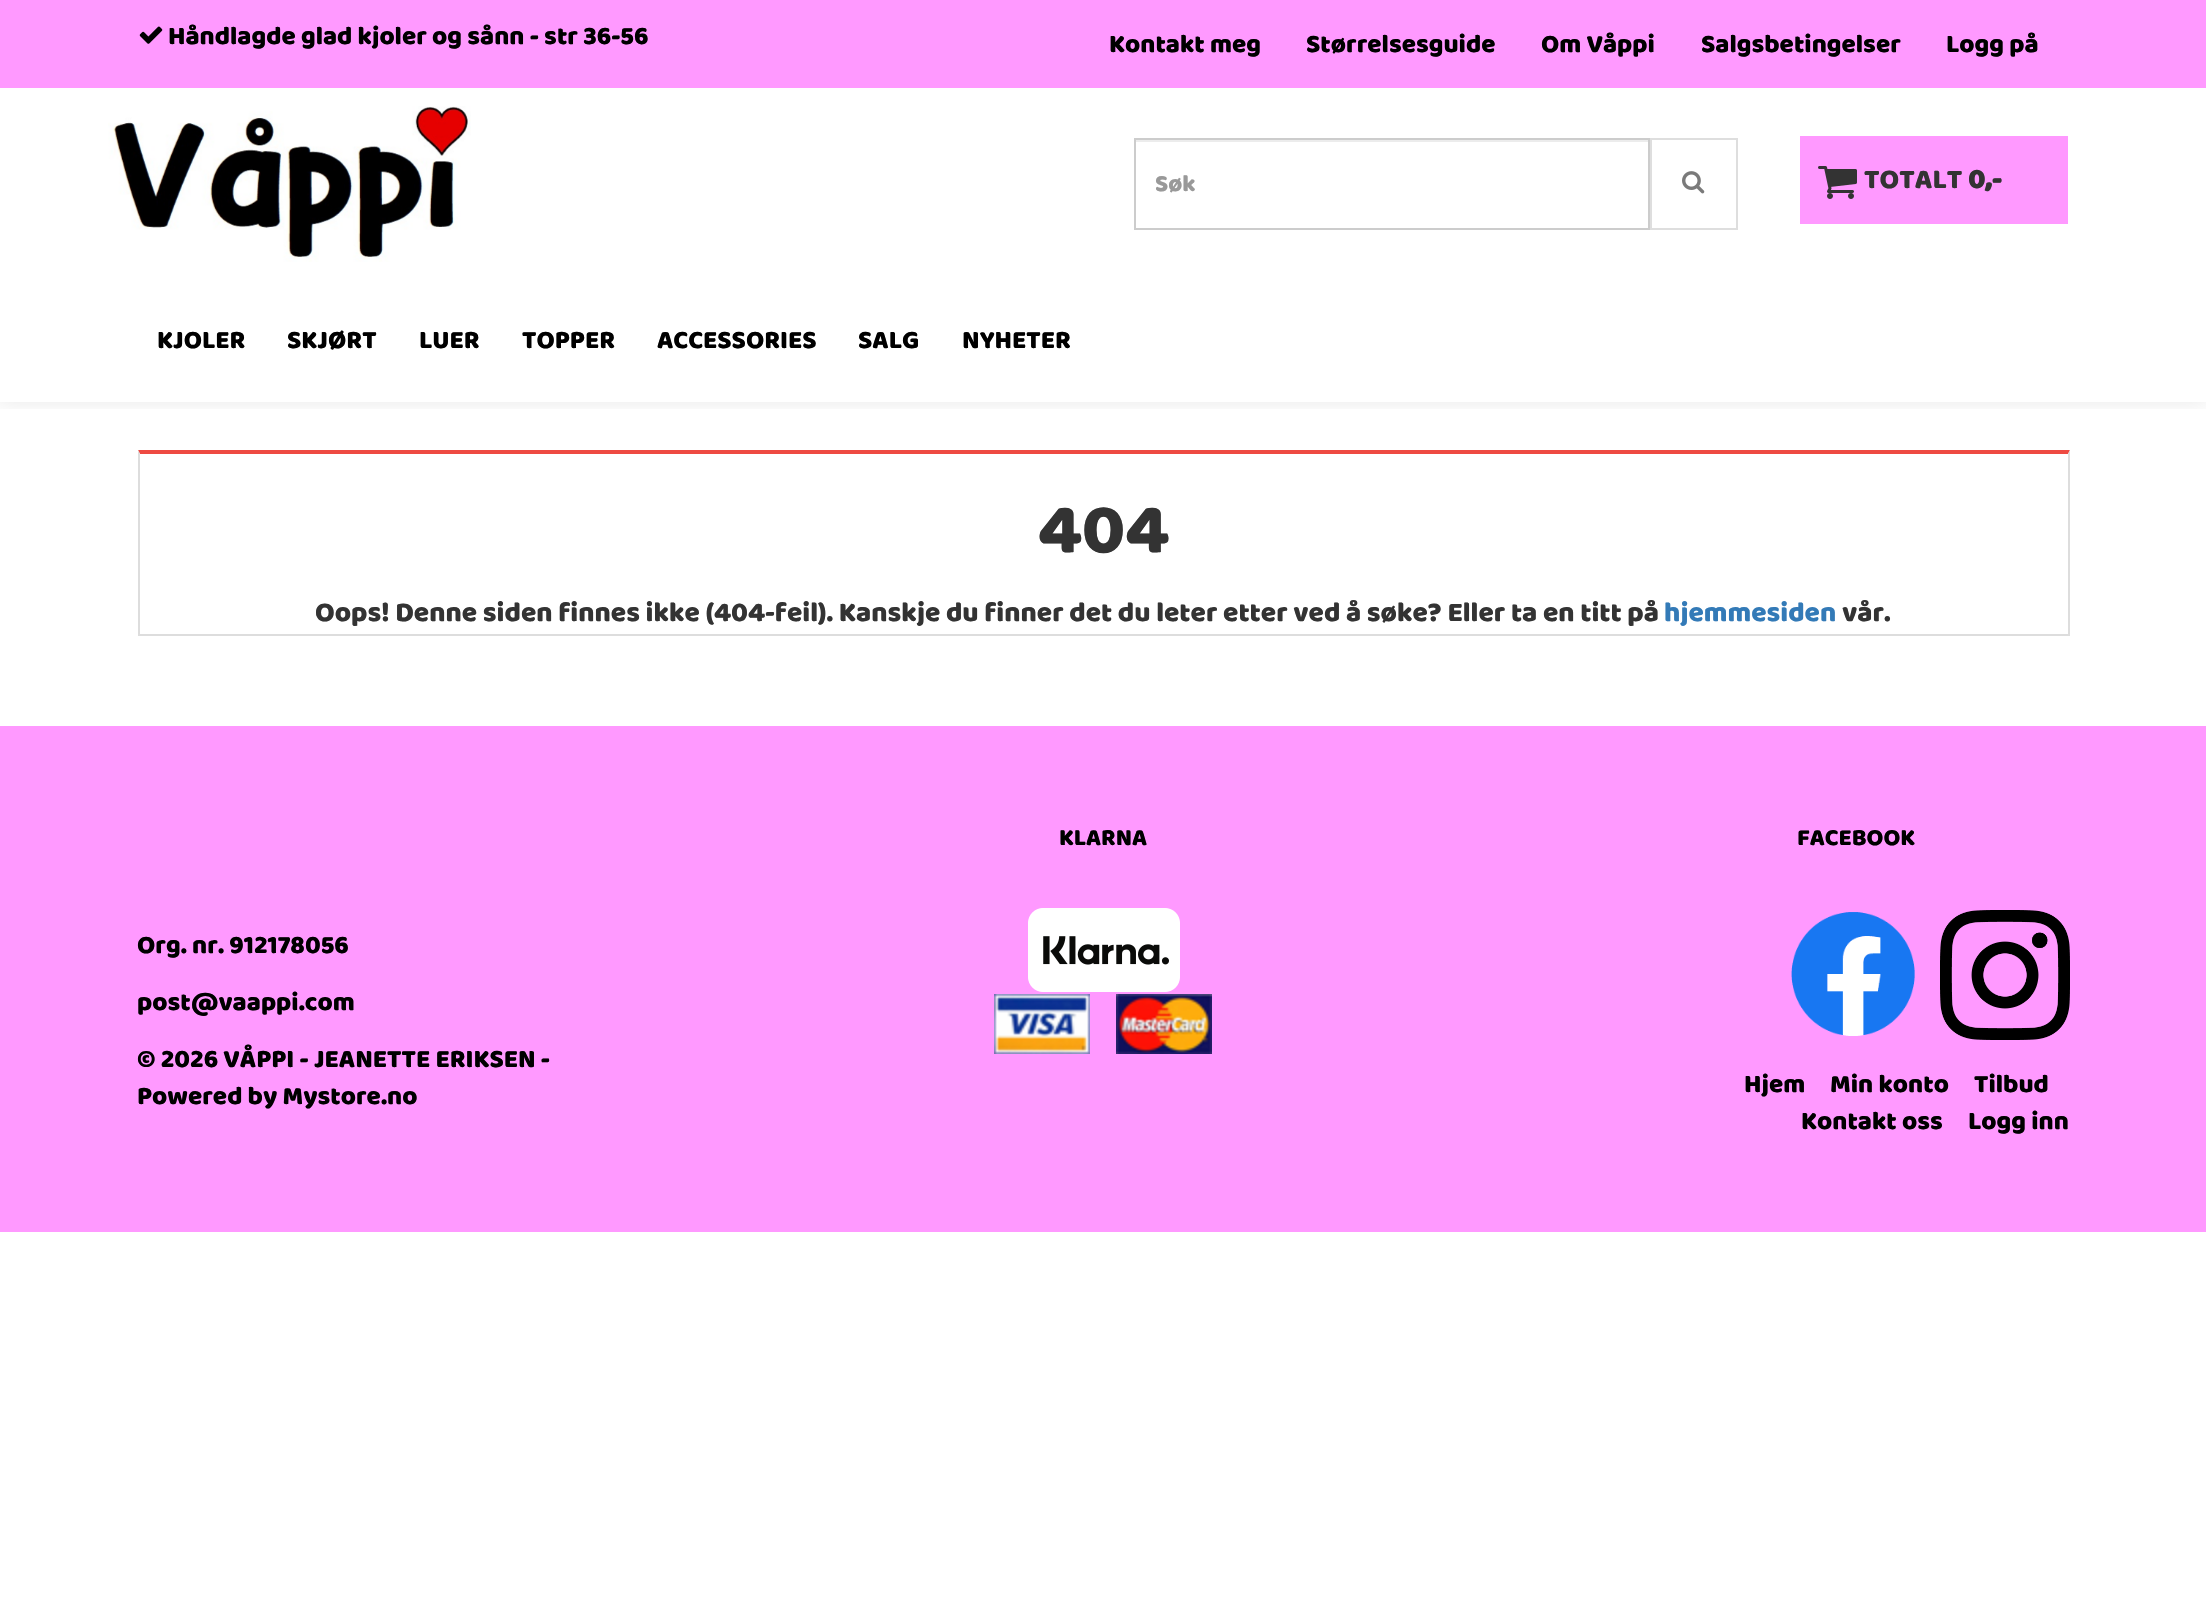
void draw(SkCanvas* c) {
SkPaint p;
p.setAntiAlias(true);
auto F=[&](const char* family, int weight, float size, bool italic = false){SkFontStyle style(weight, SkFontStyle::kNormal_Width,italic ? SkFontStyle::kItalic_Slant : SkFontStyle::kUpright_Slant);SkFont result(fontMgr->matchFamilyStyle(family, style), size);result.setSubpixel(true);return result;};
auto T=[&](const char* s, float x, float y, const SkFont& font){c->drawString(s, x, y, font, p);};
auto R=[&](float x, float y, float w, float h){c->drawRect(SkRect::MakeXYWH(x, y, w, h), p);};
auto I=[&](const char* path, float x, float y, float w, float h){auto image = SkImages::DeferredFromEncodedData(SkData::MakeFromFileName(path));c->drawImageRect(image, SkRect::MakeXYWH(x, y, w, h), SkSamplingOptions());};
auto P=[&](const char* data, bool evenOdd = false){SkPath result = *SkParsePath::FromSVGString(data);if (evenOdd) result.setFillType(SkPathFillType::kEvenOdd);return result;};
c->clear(0xffffffff);
c->save();
c->clipRect(SkRect::MakeXYWH(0,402,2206,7));
p.setColor(0x1a000000);
p.setMaskFilter(SkMaskFilter::MakeBlur(kNormal_SkBlurStyle, 11));
c->drawRect(SkRect::MakeXYWH(-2,-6,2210,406),p);
p.setMaskFilter(nullptr);
c->restore();
p.setColor(0xffff99ff);
R(0,0,2206,88);
I("1.png",139,26,24,18);
auto f1 = F("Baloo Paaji",400,26);
p.setColor(0xff000000);
T("Håndlagde glad kjoler og sånn - str 36-56",168,44,f1);
T("Kontakt meg",1109,52,f1);
T("Størrelsesguide",1306,52,f1);
T("Om Våppi",1541,52,f1);
T("Salgsbetingelser",1701,52,f1);
T("Logg på",1946,52,f1);
I("2.png",108,106,363,156);
p.setColor(0xffececec);
R(1136,140,512,2);
p.setStroke(true);
p.setStrokeWidth(2);
p.setColor(0xffcccccc);
c->drawRect(SkRect::MakeXYWH(1135,139,514,90),p);
auto f2 = F("Baloo Paaji",400,24);
p.setStroke(false);
p.setColor(0xff999999);
T("Søk",1155,191,f2);
p.setStroke(true);
p.setColor(0xffdedede);
c->drawRect(SkRect::MakeXYWH(1651,139,86,90),p);
I("3.png",1682,171,23,23);
p.setStroke(false);
p.setColor(0xffff99ff);
R(1800,136,268,88);
I("4.png",1818,166,39,33);
auto f3 = F("Baloo Paaji",400,28);
p.setColor(0xff333333);
T("TOTALT",1864,188,f3);
auto f4 = F("Baloo Paaji",700,28);
T("0,-",1968,188,f4);
p.setColor(0xff000000);
T("KJOLER",157,348,f1);
T("SKJØRT",287,348,f1);
T("LUER",419,348,f1);
T("TOPPER",522,348,f1);
T("ACCESSORIES",657,348,f1);
T("SALG",858,348,f1);
T("NYHETER",962,348,f1);
p.setColor(0xffee4a42);
c->drawPath(P("M138 450h1932l-2 4h-1928z"),p);
p.setColor(0xffdddddd);
c->drawPath(P("M2070 450v186l-2-2v-180z"),p);
R(138,634,1932,2);
c->drawPath(P("M138 636v-186l2 4v180z"),p);
auto f5 = F("Baloo Paaji",400,72);
p.setColor(0xff333333);
T("404",1038,552,f5);
T("Oops! Denne siden finnes ikke (404-feil). Kanskje du finner det du leter etter ved å søke? Eller ta en titt på",315,621,f3);
p.setColor(0xff337ab7);
T("hjemmesiden",1664,621,f3);
p.setColor(0xff333333);
T("vår.",1842,621,f3);
p.setColor(0xffff99ff);
R(0,726,2206,506);
p.setColor(0xff000000);
T("KLARNA",1059,845,f2);
T("FACEBOOK",1797,845,f2);
T("Org. nr. 912178056",137,953,f1);
T("post@vaappi.com",137,1010,f1);
T("© 2026 VÅPPI - JEANETTE ERIKSEN -",137,1067,f1);
T("Powered by Mystore.no",137,1104,f1);
I("5.png",1028,908,152,84);
I("6.png",994,994,96,60);
I("7.png",1116,994,96,60);
I("8.png",1791,912,124,124);
I("9.png",1940,910,130,130);
T("Hjem",1744,1092,f1);
T("Min konto",1830,1092,f1);
T("Tilbud",1974,1092,f1);
T("Kontakt oss",1801,1129,f1);
T("Logg inn",1968,1129,f1);
}
